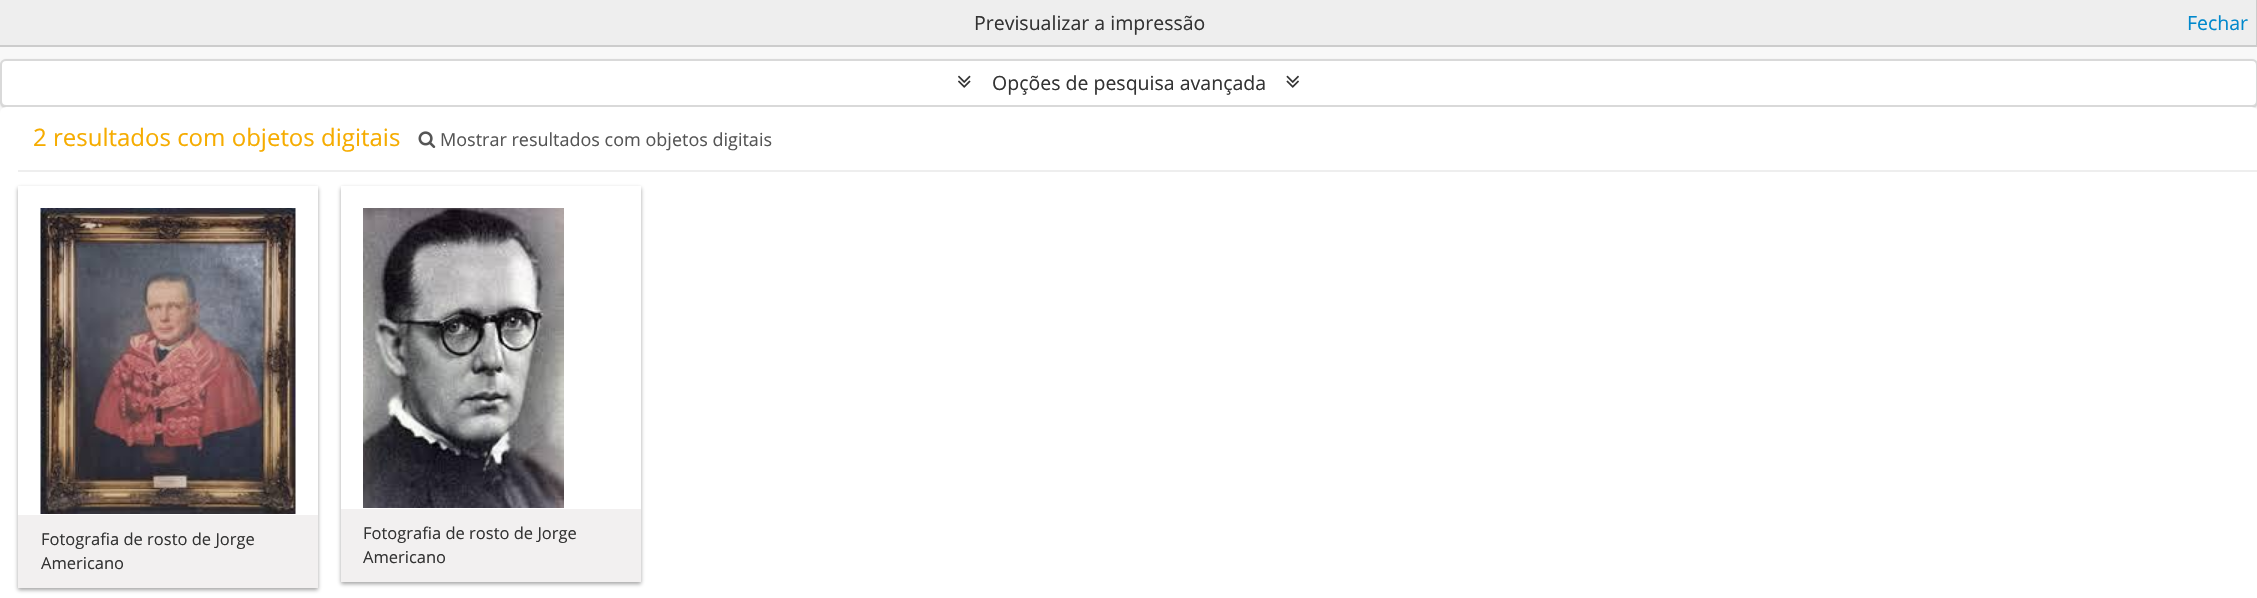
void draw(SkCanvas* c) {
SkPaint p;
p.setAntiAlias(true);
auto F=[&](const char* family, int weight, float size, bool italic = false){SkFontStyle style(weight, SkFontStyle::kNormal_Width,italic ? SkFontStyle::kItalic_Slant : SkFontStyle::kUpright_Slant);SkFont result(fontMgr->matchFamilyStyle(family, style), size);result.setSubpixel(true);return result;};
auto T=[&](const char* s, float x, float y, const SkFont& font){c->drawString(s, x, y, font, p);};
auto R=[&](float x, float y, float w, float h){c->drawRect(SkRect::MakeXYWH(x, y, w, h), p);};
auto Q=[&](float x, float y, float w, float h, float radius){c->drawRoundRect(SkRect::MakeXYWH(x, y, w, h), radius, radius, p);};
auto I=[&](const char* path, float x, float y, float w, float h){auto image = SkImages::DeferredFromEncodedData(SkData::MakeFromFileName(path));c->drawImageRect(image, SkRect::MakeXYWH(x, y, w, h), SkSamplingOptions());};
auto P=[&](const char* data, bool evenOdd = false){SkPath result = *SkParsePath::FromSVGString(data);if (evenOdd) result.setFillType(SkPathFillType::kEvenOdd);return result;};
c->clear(0xfff8f8f8);
p.setColor(0xffeeeeee);
R(0,0,2256,45);
p.setColor(0xffcccccc);
R(2256,0,1,47);
R(0,45,2257,2);
auto f1 = F("Open Sans",400,19.5);
p.setColor(0xff333333);
T("Previsualizar a impressão",974,30,f1);
p.setColor(0xff0088cc);
T("Fechar",2187,30,f1);
p.setColor(0x33000000);
p.setMaskFilter(SkMaskFilter::MakeBlur(kNormal_SkBlurStyle, 1));
c->drawRoundRect(SkRect::MakeXYWH(0,60,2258,48),6,6,p);
p.setMaskFilter(nullptr);
p.setColor(0xffffffff);
c->drawRoundRect(SkRect::MakeXYWH(1,60,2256,46),5,5,p);
p.setStroke(true);
p.setStrokeWidth(2);
p.setColor(0xffd9d9d9);
c->drawRoundRect(SkRect::MakeXYWH(1,60,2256,46),5,5,p);
I("1.png",958,75,13,13);
p.setStroke(false);
p.setColor(0xff333333);
T("Opções de pesquisa avançada",992,90,f1);
I("2.png",1286,75,13,13);
p.setColor(0xffffffff);
Q(0,107,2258,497,6);
p.setColor(0xffeeeeee);
R(18,170,2239,2);
auto f2 = F("Open Sans",400,24);
p.setColor(0xfff6ac00);
T("2 resultados com objetos digitais",33,146,f2);
I("3.png",418,131,18,17);
auto f3 = F("Open Sans",400,18);
p.setColor(0xff555555);
T("Mostrar resultados com objetos digitais",440,146,f3);
c->save();
c->clipPath(P("M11 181h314v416h-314zm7 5h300v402h-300z",true),true);
p.setColor(0x66191919);
p.setMaskFilter(SkMaskFilter::MakeBlur(kNormal_SkBlurStyle, 2));
c->drawRect(SkRect::MakeXYWH(18,188,300,402),p);
p.setMaskFilter(nullptr);
c->restore();
I("4.png",40,208,256,306);
p.setColor(0xfff2f0f0);
R(18,515,300,73);
auto f4 = F("Open Sans",400,16.5);
p.setColor(0xff333333);
T("Fotografia de rosto de Jorge",41,545,f4);
T("Americano",41,569,f4);
p.setColor(0x66191919);
p.setMaskFilter(SkMaskFilter::MakeBlur(kNormal_SkBlurStyle, 2));
c->drawRect(SkRect::MakeXYWH(341,188,300,396),p);
p.setMaskFilter(nullptr);
p.setColor(0xffffffff);
R(341,186,300,323);
I("5.png",363,208,201,300);
p.setColor(0xfff2f0f0);
R(341,509,300,73);
p.setColor(0xff333333);
T("Fotografia de rosto de Jorge",363,539,f4);
T("Americano",363,563,f4);
}
